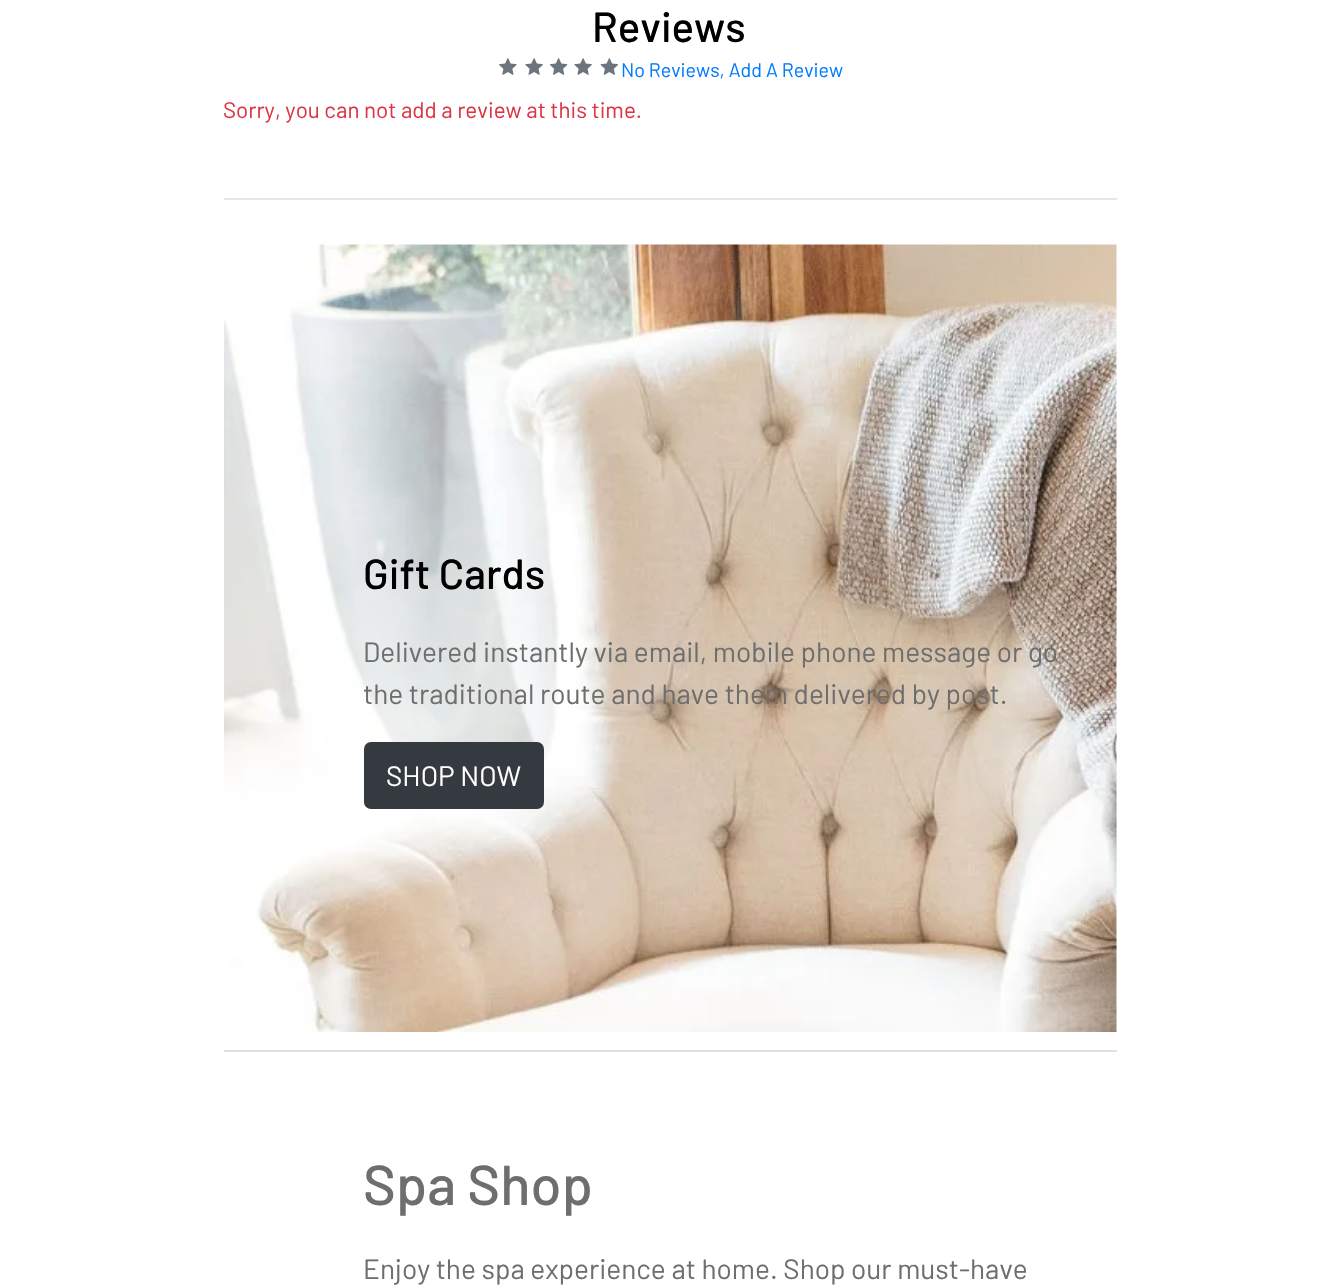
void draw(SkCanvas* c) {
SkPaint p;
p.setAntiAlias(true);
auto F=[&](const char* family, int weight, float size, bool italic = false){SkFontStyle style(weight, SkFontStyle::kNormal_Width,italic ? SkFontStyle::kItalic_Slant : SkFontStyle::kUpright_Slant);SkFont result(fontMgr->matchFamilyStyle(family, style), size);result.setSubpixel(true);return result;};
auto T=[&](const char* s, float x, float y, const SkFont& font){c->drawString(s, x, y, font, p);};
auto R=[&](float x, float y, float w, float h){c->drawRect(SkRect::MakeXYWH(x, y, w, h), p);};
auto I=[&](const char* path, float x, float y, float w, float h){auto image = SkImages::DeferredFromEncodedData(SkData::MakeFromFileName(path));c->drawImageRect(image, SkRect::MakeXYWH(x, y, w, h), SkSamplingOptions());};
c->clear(0xffffffff);
auto f1 = F("Barlow",500,42);
p.setColor(0xff000000);
T("Reviews",592,42,f1);
I("1.png",499,58,18,17);
I("2.png",525,58,18,17);
I("3.png",549,58,19,17);
I("2.png",574,58,18,17);
I("4.png",600,58,19,17);
auto f2 = F("Barlow",400,19.6);
p.setColor(0xff007bff);
T("No Reviews, Add A Review",621,77,f2);
auto f3 = F("Barlow",400,22.4);
p.setColor(0xffdc3545);
T("Sorry, you can not add a review at this time.",223,118,f3);
p.setColor(0xffe6e6e6);
R(224,198,893,2);
I("5.png",224,244,893,788);
p.setColor(0xff000000);
T("Gift Cards",363,589,f1);
auto f4 = F("Barlow",400,28);
p.setColor(0xff6e6e6e);
T("Delivered instantly via email, mobile phone message or go",363,662,f4);
T("the traditional route and have them delivered by post.",363,704,f4);
p.setColor(0xff343a40);
c->drawRoundRect(SkRect::MakeXYWH(365,743,178,65),6,6,p);
p.setStroke(true);
p.setStrokeWidth(2);
c->drawRoundRect(SkRect::MakeXYWH(365,743,178,65),6,6,p);
p.setStroke(false);
p.setColor(0xffffffff);
T("SHOP NOW",386,786,f4);
p.setColor(0xffdee2e6);
R(224,1050,893,2);
auto f5 = F("Barlow",500,56);
p.setColor(0xff6e6e6e);
T("Spa Shop",363,1205,f5);
T("Enjoy the spa experience at home. Shop our must-have",363,1279,f4);
}
